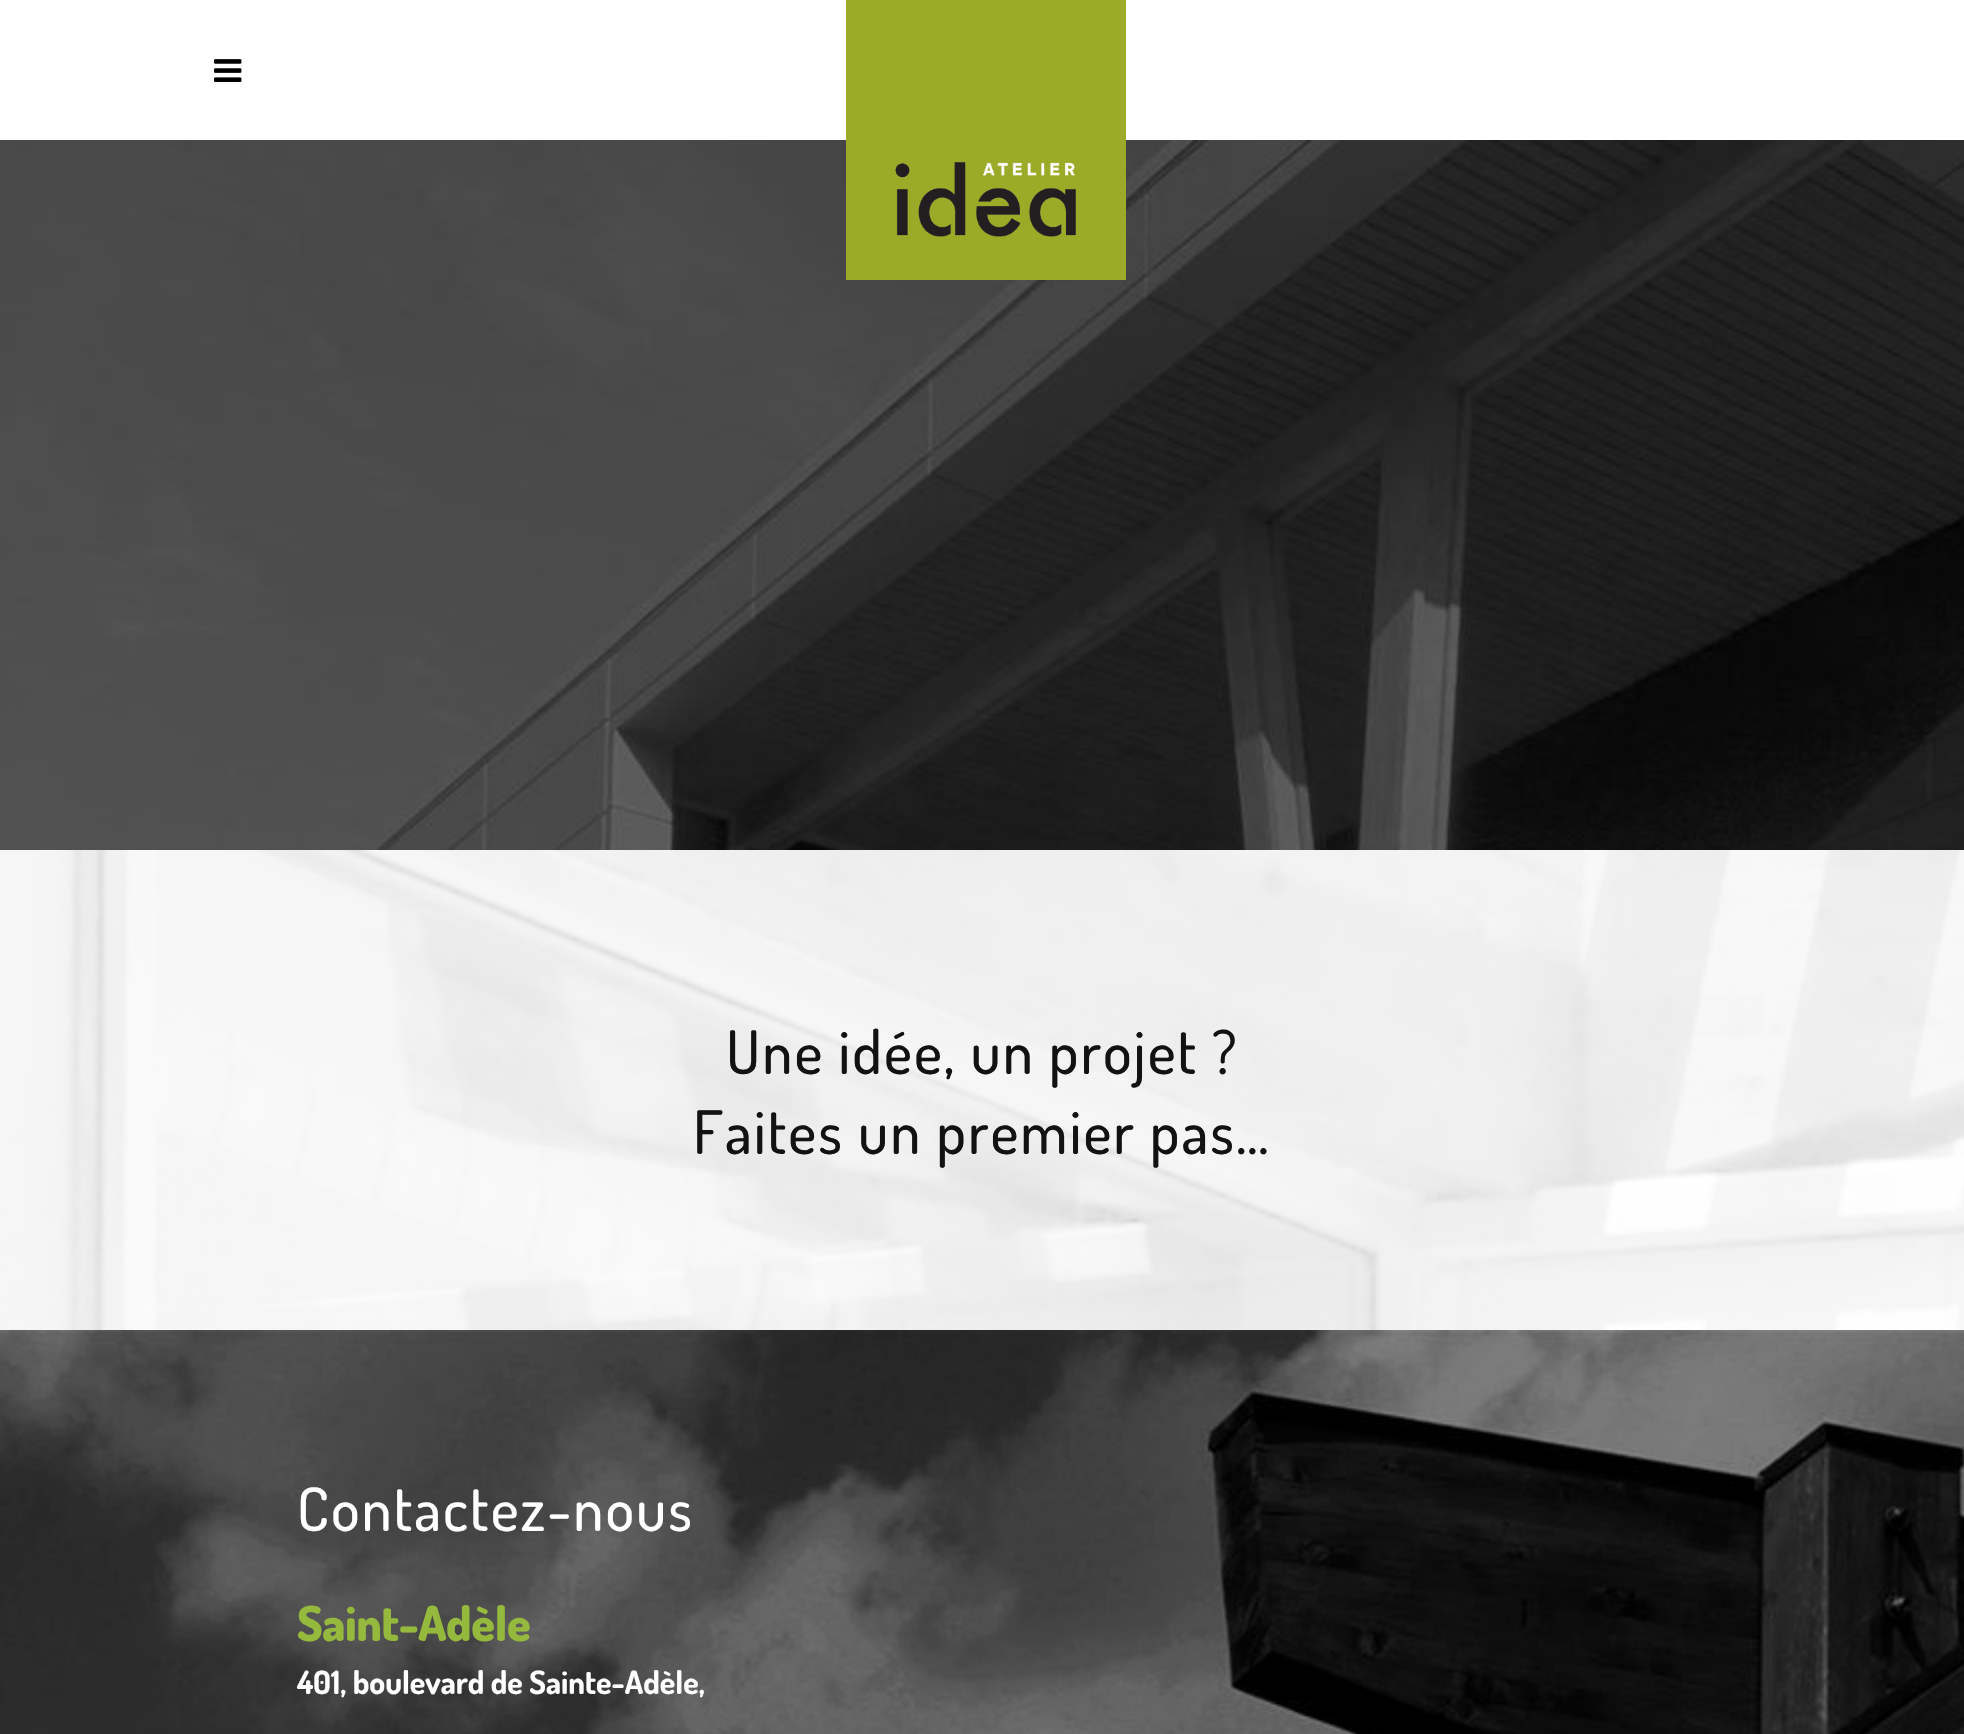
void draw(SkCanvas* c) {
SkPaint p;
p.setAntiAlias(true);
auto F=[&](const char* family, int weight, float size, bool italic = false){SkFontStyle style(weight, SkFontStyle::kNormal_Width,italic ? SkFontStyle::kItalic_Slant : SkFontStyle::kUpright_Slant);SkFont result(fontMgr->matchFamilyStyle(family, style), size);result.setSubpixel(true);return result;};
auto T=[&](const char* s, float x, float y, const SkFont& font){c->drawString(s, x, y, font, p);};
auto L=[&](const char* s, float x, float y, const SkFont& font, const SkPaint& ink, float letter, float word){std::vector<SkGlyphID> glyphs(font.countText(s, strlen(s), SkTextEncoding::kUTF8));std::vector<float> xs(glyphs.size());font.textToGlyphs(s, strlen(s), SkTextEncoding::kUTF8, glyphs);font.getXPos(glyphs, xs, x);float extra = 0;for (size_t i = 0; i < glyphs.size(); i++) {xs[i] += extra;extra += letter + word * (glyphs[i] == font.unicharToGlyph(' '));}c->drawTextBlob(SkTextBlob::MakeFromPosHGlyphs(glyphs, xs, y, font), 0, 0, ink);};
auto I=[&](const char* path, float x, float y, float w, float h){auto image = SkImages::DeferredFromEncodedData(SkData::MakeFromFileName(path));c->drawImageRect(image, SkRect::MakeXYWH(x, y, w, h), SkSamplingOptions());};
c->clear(0xffffffff);
I("1.png",214,59,28,23);
I("3.png",0,140,1964,710);
I("2.png",846,0,280,280);
I("4.png",0,850,1964,480);
auto f1 = F("Dosis",500,60);
p.setColor(0xff121212);
L("Une idée, un projet ?",726,1074,f1,p,2,0);
L("Faites un premier pas…",693,1154,f1,p,2,0);
I("5.png",0,1330,1964,404);
p.setColor(0xffffffff);
L("Contactez-nous",297,1531,f1,p,2,0);
auto f2 = F("Dosis",800,48);
p.setColor(0xff95b93d);
L("Saint-Adèle",297,1641,f2,p,-.4,0);
auto f3 = F("Dosis",700,32);
p.setColor(0xffffffff);
T("401, boulevard de Sainte-Adèle,",297,1694,f3);
}
